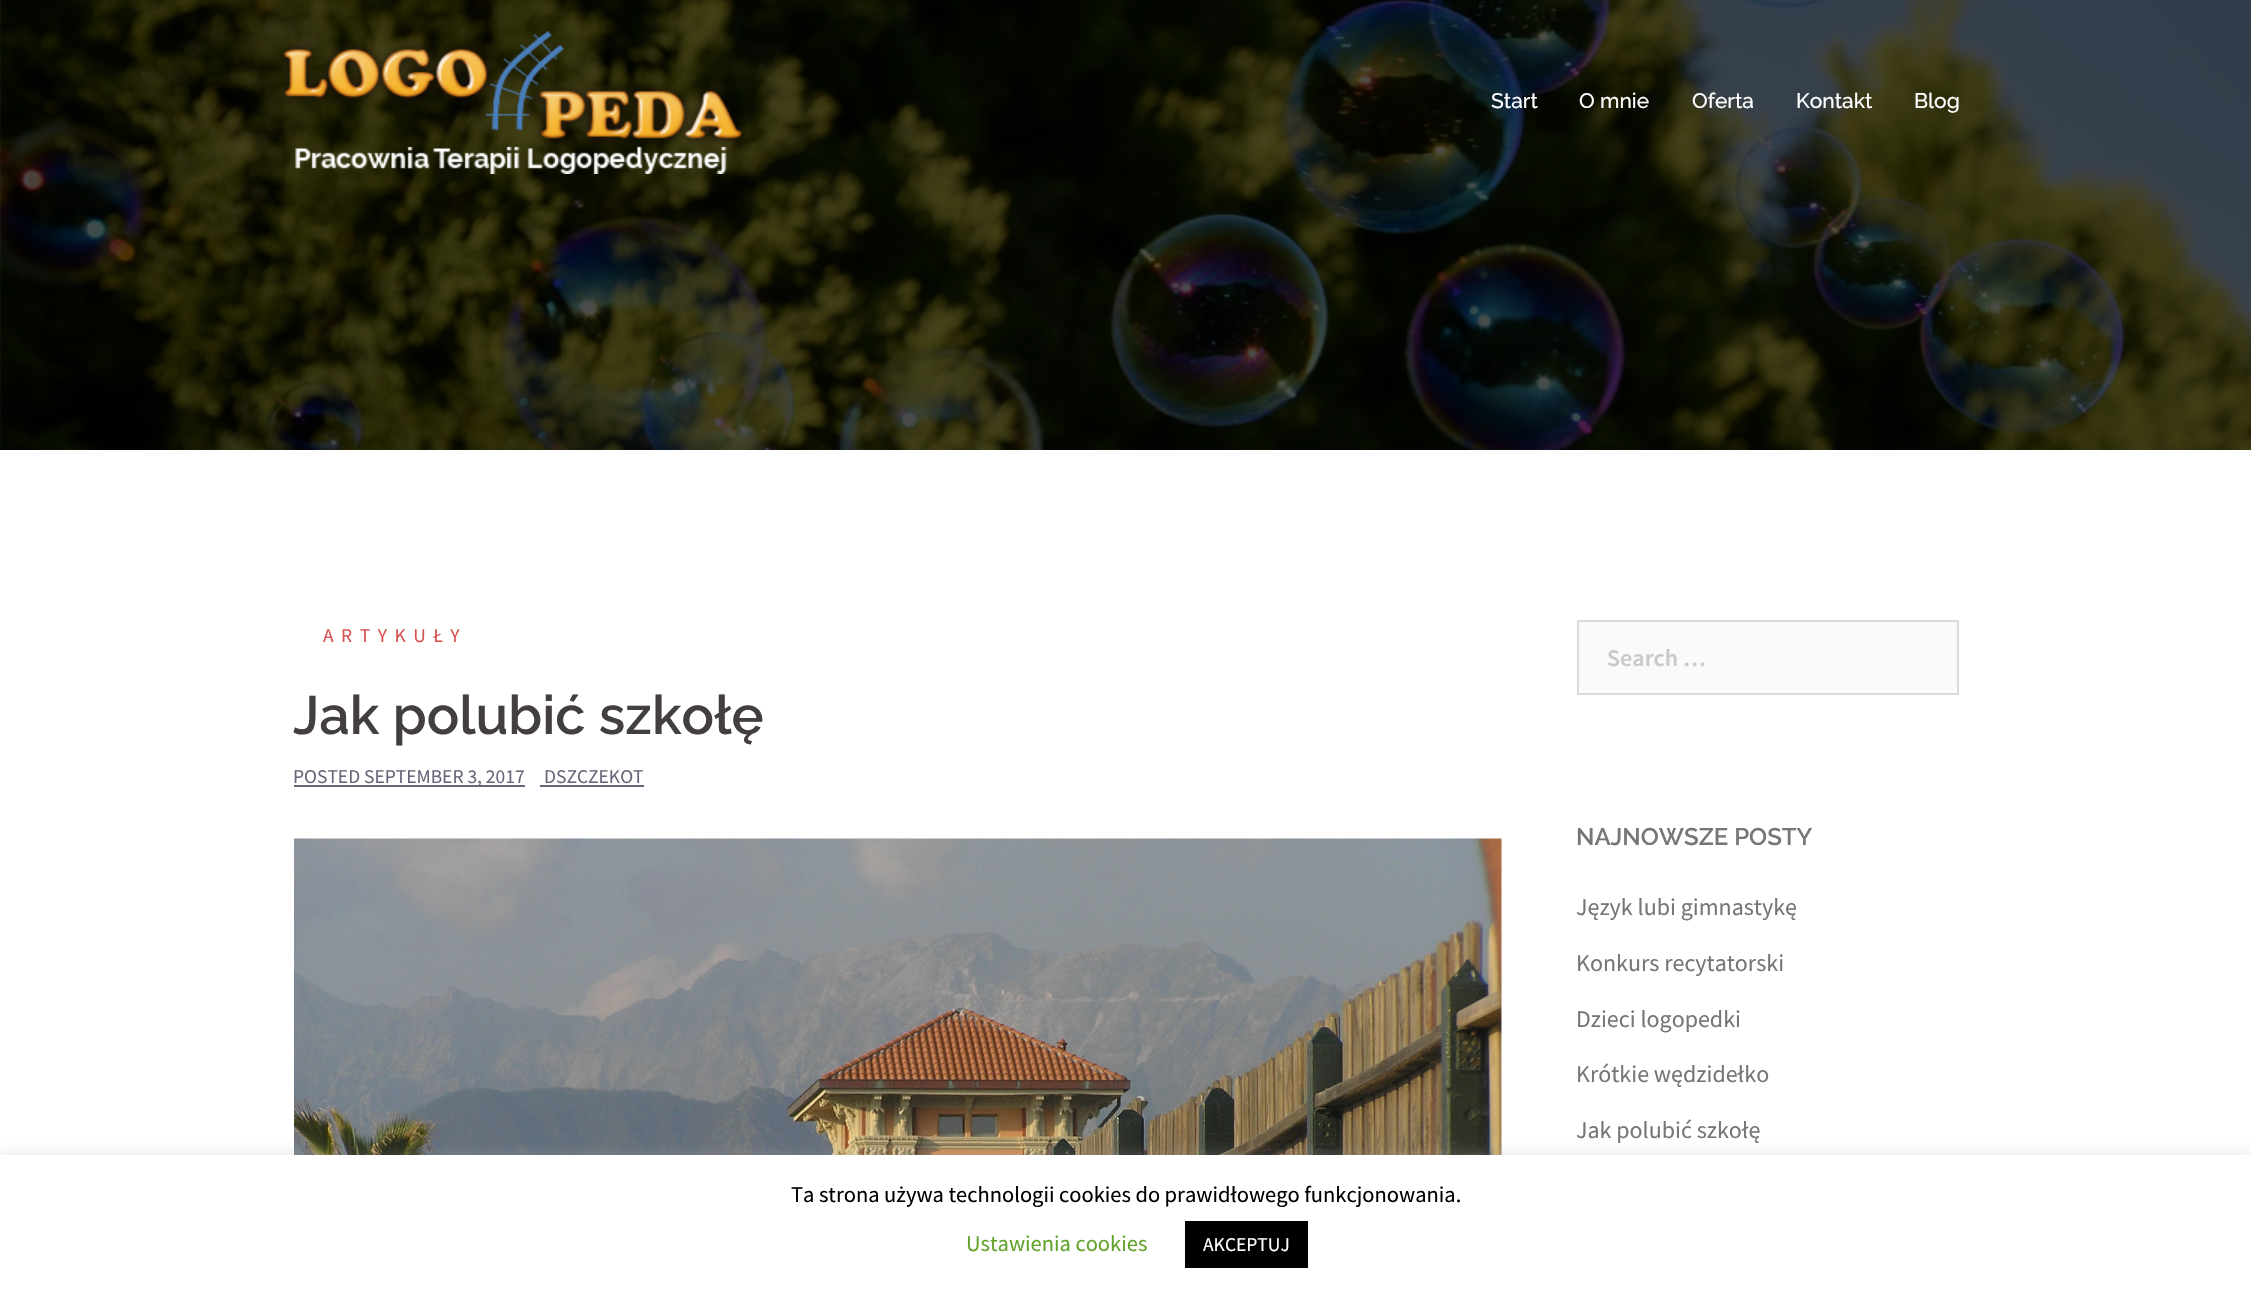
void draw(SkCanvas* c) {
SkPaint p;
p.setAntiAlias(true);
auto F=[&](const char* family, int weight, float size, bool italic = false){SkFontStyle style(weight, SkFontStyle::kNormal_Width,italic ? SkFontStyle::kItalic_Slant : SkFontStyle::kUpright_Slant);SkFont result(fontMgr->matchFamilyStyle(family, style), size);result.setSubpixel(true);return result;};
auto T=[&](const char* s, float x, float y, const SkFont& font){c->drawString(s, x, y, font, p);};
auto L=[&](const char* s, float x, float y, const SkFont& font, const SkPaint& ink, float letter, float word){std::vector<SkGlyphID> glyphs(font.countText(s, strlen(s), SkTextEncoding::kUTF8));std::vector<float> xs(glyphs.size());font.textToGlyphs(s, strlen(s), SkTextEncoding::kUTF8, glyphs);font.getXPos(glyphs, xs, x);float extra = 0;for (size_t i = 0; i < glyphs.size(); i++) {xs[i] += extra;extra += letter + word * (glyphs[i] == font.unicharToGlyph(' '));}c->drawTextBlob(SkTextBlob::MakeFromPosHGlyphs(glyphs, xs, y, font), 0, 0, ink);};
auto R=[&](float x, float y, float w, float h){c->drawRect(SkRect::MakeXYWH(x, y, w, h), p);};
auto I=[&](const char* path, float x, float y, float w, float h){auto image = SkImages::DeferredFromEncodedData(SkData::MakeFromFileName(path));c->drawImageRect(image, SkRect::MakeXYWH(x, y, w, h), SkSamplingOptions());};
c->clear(0xffffffff);
I("1.png",0,0,2251,450);
I("2.png",283,30,460,144);
auto f1 = F("Raleway",500,21);
p.setColor(0xffffffff);
T("Start",1491,108,f1);
T("O mnie",1579,108,f1);
T("Oferta",1692,108,f1);
T("Kontakt",1796,108,f1);
T("Blog",1914,108,f1);
auto f2 = F("Source Sans Pro",400,19.5);
p.setColor(0xffd65050);
L("ARTYKUŁY",323,642,f2,p,7.5,0);
auto f3 = F("Raleway",600,54);
p.setColor(0xff443f3f);
T("Jak polubić szkołę",293,734,f3);
p.setColor(0xff68647a);
R(294,785,231,2);
T("POSTED SEPTEMBER 3, 2017",293,783,f2);
T("DSZCZEKOT",544,783,f2);
R(540,785,104,2);
I("3.png",294,838,1208,317);
p.setColor(0xfffafafa);
c->drawRect(SkRect::MakeXYWH(1578,621,380,73),p);
p.setStroke(true);
p.setStrokeWidth(2);
p.setColor(0xffdbdbdb);
c->drawRect(SkRect::MakeXYWH(1578,621,380,73),p);
auto f4 = F("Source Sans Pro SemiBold",600,24);
p.setStroke(false);
p.setColor(0xffcacaca);
T("Search …",1607,666,f4);
auto f5 = F("Raleway",600,24);
p.setColor(0xff767676);
T("NAJNOWSZE POSTY",1576,845,f5);
auto f6 = F("Source Sans Pro",400,24);
T("Język lubi gimnastykę",1576,915,f6);
T("Konkurs recytatorski",1576,971,f6);
T("Dzieci logopedki",1576,1027,f6);
T("Krótkie wędzidełko",1576,1082,f6);
T("Jak polubić szkołę",1576,1138,f6);
p.setColor(0x4dacabab);
p.setMaskFilter(SkMaskFilter::MakeBlur(kNormal_SkBlurStyle, 7.5));
c->drawRect(SkRect::MakeXYWH(0,1154,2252,138),p);
p.setMaskFilter(nullptr);
p.setColor(0xffffffff);
R(0,1155,2251,137);
auto f7 = F("Source Sans Pro",400,22.5);
p.setColor(0xff000000);
T("Ta strona używa technologii cookies do prawidłowego funkcjonowania.",791,1202,f7);
p.setColor(0xff62a329);
T("Ustawienia cookies",966,1251,f7);
p.setColor(0xff000000);
R(1185,1221,123,47);
p.setColor(0xffffffff);
T("AKCEPTUJ",1203,1251,f2);
}
